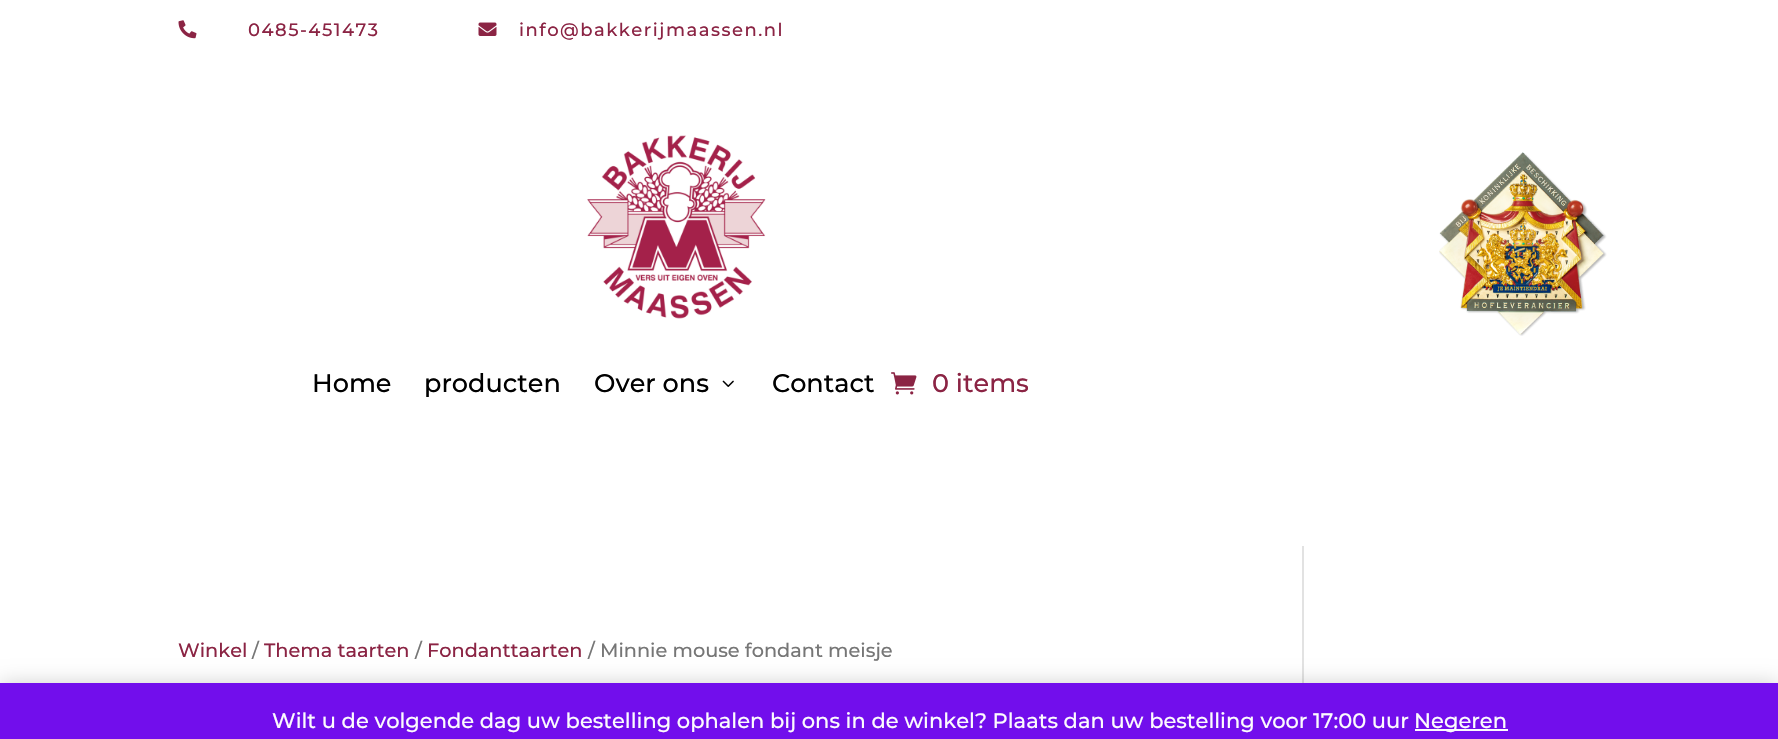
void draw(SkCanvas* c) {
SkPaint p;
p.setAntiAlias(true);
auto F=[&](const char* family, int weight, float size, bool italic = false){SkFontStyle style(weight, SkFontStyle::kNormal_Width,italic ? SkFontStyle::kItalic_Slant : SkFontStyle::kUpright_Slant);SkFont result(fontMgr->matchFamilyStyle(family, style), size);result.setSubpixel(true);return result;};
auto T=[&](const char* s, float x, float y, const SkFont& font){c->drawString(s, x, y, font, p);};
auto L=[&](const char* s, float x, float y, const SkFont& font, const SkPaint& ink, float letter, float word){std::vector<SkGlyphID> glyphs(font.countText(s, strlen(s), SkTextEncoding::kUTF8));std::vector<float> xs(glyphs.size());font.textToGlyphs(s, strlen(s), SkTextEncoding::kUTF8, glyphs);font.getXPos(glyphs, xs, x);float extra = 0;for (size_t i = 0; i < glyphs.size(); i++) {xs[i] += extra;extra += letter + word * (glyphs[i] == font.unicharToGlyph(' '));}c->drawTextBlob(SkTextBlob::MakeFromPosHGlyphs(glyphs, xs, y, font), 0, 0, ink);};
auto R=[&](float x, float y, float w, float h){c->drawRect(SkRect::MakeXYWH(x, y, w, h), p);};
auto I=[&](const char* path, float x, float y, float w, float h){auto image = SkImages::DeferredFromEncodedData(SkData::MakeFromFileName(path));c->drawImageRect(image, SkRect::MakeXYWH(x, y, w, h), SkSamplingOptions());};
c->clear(0xffffffff);
I("1.png",178,20,19,19);
auto f1 = F("Montserrat",500,18);
p.setColor(0xff8b2444);
L("0485-451473",248,36,f1,p,1.5,0);
I("2.png",478,22,19,14);
L("info@bakkerijmaassen.nl",519,36,f1,p,1.5,0);
I("3.png",1439,152,168,184);
I("4.png",587,135,179,184);
auto f2 = F("Montserrat",500,25.5);
p.setColor(0xff000000);
T("Home",312,392,f2);
T("producten",424,392,f2);
T("Over ons",594,392,f2);
I("5.png",722,380,12,7);
T("Contact",772,392,f2);
I("6.png",891,372,26,23);
p.setColor(0xff8b2444);
T("0 items",932,392,f2);
auto f3 = F("Montserrat",500,19.3);
T("Winkel",178,657,f3);
p.setColor(0xff767676);
T("/",252,657,f3);
p.setColor(0xff8b2444);
T("Thema taarten",264,657,f3);
p.setColor(0xff767676);
T("/",415,657,f3);
p.setColor(0xff8b2444);
T("Fondanttaarten",427,657,f3);
p.setColor(0xff767676);
T("/ Minnie mouse fondant meisje",588,657,f3);
p.setColor(0xffe2e2e2);
R(1302,546,2,137);
p.setColor(0x33000000);
p.setMaskFilter(SkMaskFilter::MakeBlur(kNormal_SkBlurStyle, 10.5));
c->drawRect(SkRect::MakeXYWH(0,684,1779,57),p);
p.setMaskFilter(nullptr);
p.setColor(0xff720eec);
R(0,683,1778,56);
auto f4 = F("Montserrat",500,21);
p.setColor(0xfffcfbfe);
T("Wilt u de volgende dag uw bestelling ophalen bij ons in de winkel? Plaats dan uw bestelling voor 17:00 uur",272,728,f4);
R(1415,729,93,2);
T("Negeren",1414,728,f4);
}
